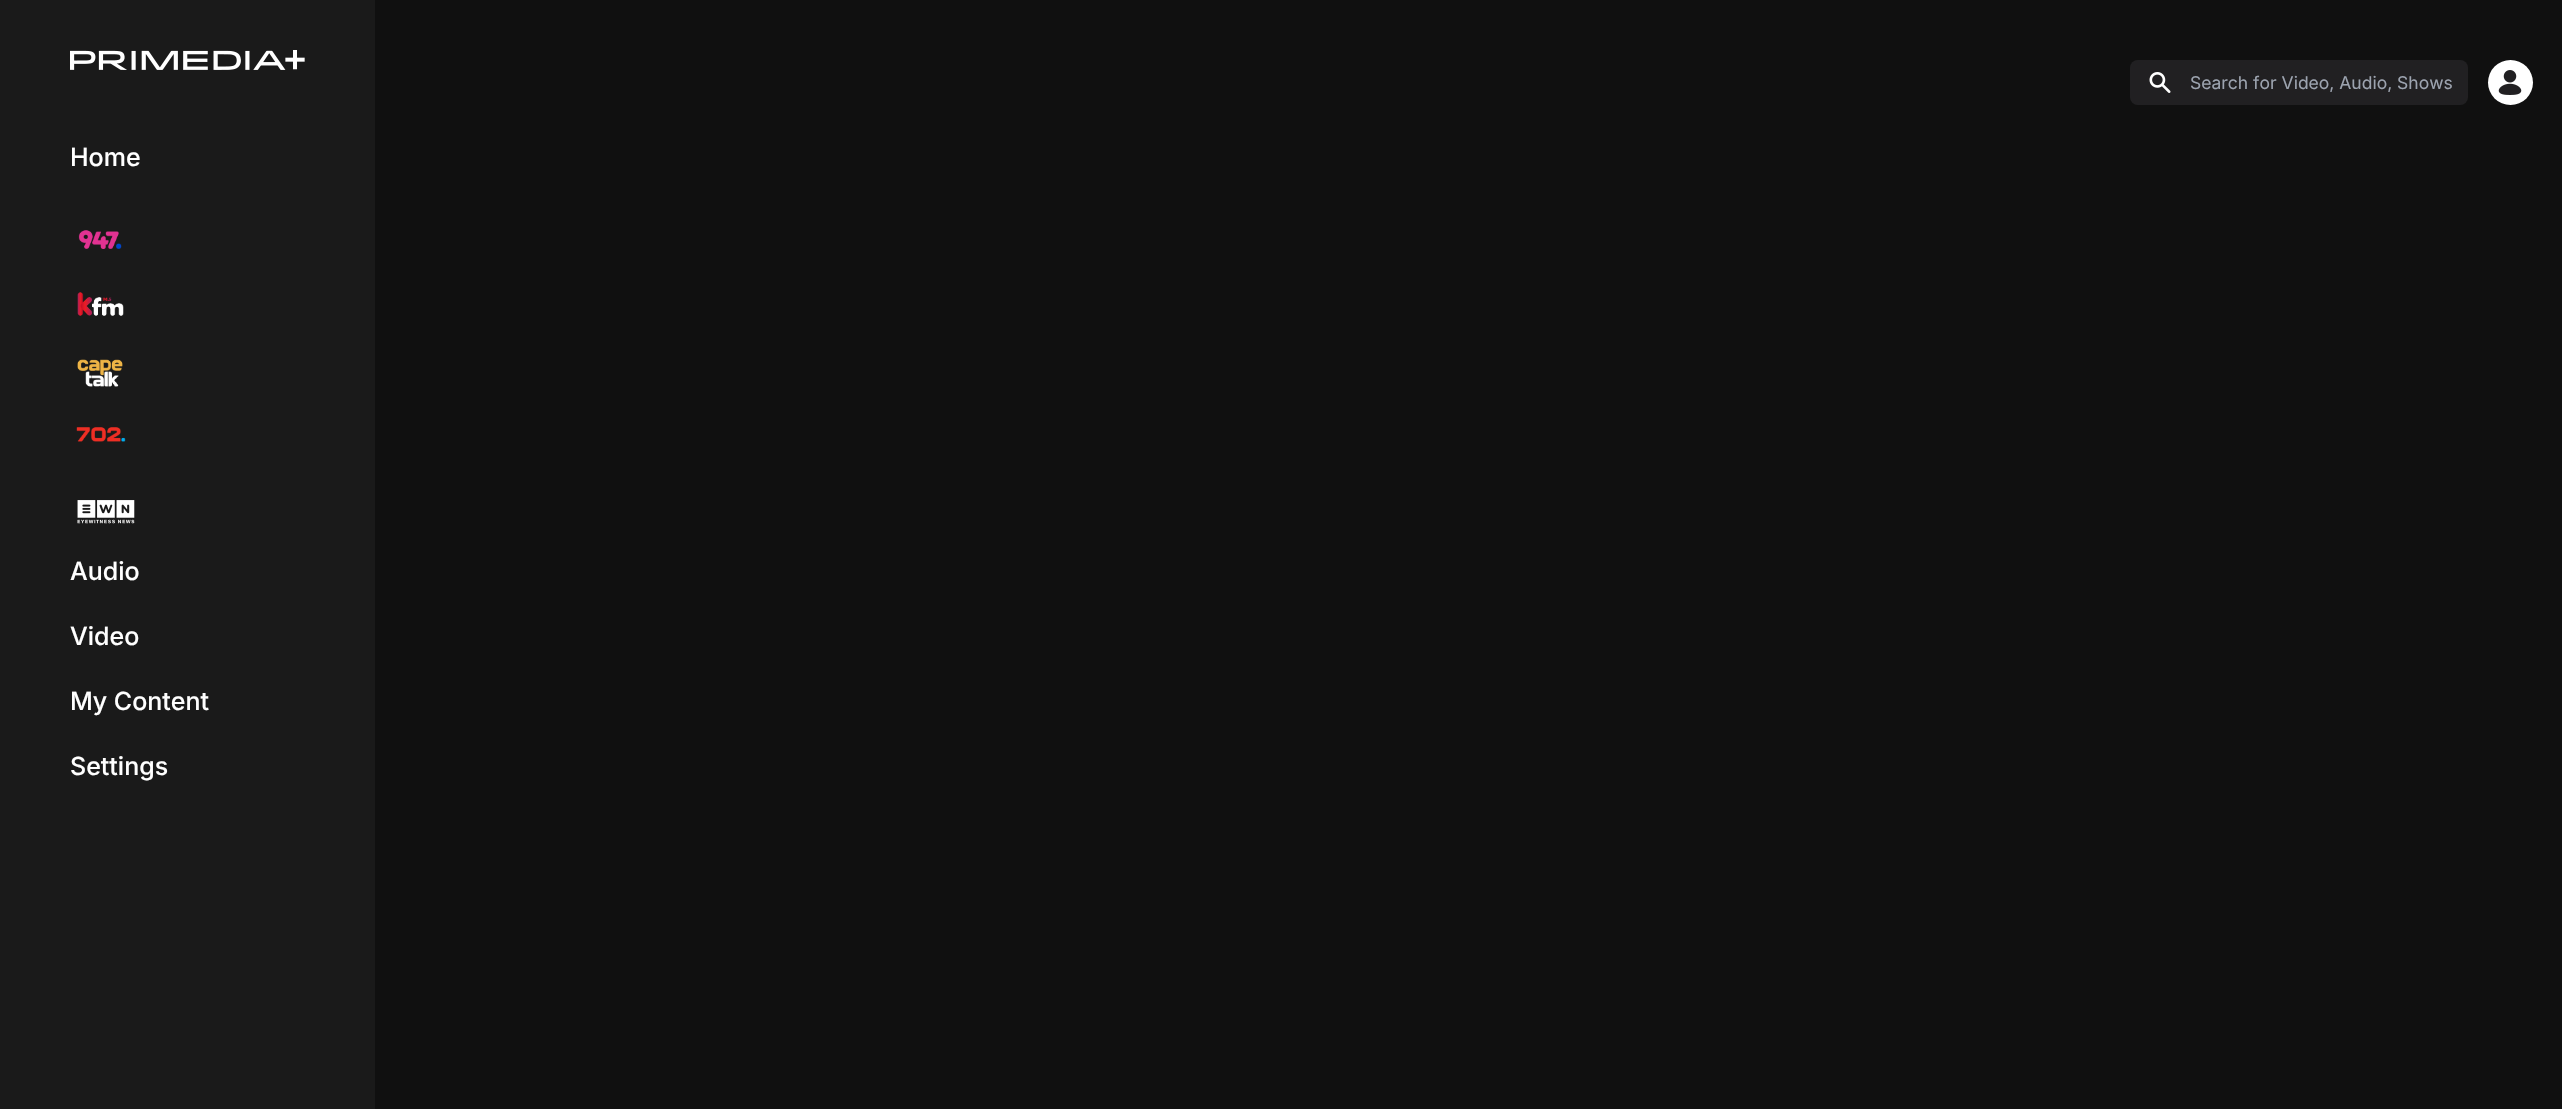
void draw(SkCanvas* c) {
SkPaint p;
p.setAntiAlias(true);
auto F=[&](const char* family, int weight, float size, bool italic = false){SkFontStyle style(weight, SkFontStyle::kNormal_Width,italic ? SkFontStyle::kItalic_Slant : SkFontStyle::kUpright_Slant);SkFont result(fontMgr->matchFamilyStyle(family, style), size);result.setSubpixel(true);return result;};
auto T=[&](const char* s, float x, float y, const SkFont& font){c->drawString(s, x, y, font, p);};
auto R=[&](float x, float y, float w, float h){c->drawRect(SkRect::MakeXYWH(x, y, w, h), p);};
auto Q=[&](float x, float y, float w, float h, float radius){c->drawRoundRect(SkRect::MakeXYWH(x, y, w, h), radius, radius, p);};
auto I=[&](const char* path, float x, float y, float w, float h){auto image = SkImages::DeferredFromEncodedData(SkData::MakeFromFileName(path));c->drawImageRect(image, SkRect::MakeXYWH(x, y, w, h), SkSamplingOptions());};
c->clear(0xff101010);
p.setColor(0xff212022);
Q(2130,60,338,45,8);
I("1.png",2149,72,22,21);
auto f1 = F("Inter",400,17.5);
p.setColor(0xff9ca3af);
T("Search for Video, Audio, Shows",2190,89,f1);
p.setColor(0xffffffff);
c->drawCircle(2510.5,82.5,22.5,p);
I("2.png",2498,70,24,25);
p.setColor(0xff1a1a1a);
R(0,0,375,1109);
I("3.png",70,50,235,20);
auto f2 = F("Inter",500,25);
p.setColor(0xffffffff);
T("Home",70,166,f2);
I("4.png",78,230,44,19);
I("5.png",77,292,47,24);
I("6.png",77,359,46,28);
I("7.png",76,427,50,15);
I("8.png",77,500,58,24);
T("Audio",70,580,f2);
T("Video",70,645,f2);
T("My Content",70,710,f2);
T("Settings",70,775,f2);
}
